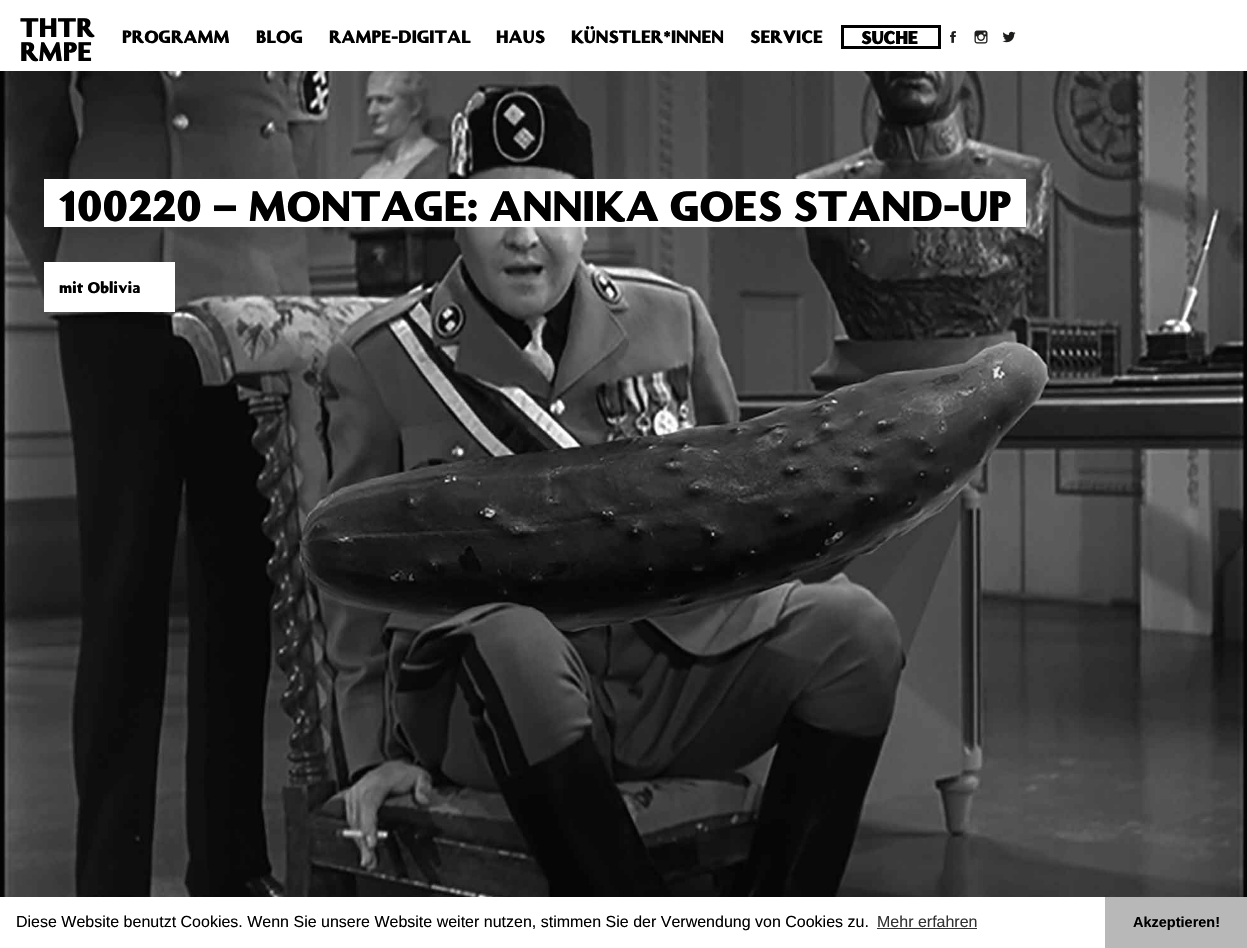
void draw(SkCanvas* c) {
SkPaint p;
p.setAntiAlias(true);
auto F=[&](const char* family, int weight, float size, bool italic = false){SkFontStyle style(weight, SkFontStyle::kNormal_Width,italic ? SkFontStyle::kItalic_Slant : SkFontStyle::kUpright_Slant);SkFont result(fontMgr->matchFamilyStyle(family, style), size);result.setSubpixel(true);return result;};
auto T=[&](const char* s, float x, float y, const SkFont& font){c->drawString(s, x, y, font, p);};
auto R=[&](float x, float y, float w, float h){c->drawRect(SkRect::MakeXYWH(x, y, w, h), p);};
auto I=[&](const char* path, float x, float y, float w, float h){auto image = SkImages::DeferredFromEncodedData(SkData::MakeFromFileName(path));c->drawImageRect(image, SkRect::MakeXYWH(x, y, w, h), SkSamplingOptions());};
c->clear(0xffffffff);
auto f1 = F("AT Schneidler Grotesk",400,24);
p.setColor(0xff000000);
T("THTR",20,37,f1);
T("RMPE",20,61,f1);
auto f2 = F("AT Schneidler Grotesk",400,16);
T("PROGRAMM",122,43,f2);
T("BLOG",256,43,f2);
T("RAMPE-DIGITAL",329,43,f2);
T("HAUS",496,43,f2);
T("KÜNSTLER*INNEN",571,43,f2);
T("SERVICE",750,43,f2);
p.setStroke(true);
p.setStrokeWidth(3);
c->drawRect(SkRect::MakeXYWH(842.5,26.5,97,21),p);
auto f3 = F("AT Schneidler Grotesk",700,16);
p.setStroke(false);
T("SUCHE",861,44,f3);
I("1.png",950,31,6,12);
I("2.png",974,30,14,14);
I("3.png",1002,31,14,12);
I("4.png",0,71,1247,826);
p.setColor(0xffffffff);
R(44,179,982,48);
auto f4 = F("AT Schneidler Grotesk",400,38);
p.setColor(0xff000000);
T("100220 – MONTAGE: ANNIKA GOES STAND-UP",59,221,f4);
p.setColor(0xffffffff);
R(44,262,131,50);
auto f5 = F("AT Schneidler Grotesk",400,14);
p.setColor(0xff000000);
T("mit Oblivia",59,293,f5);
auto f6 = F("Liberation Sans",400,16);
T("Diese Website benutzt Cookies. Wenn Sie unsere Website weiter nutzen, stimmen Sie der Verwendung von Cookies zu.",16,927,f6);
p.setColor(0xff333333);
T("Mehr erfahren",877,927,f6);
R(877,928,100,1);
p.setColor(0xffb8b8b8);
R(1105,897,142,51);
auto f7 = F("Liberation Sans",700,14.5);
p.setColor(0xff000000);
T("Akzeptieren!",1133,927,f7);
}
